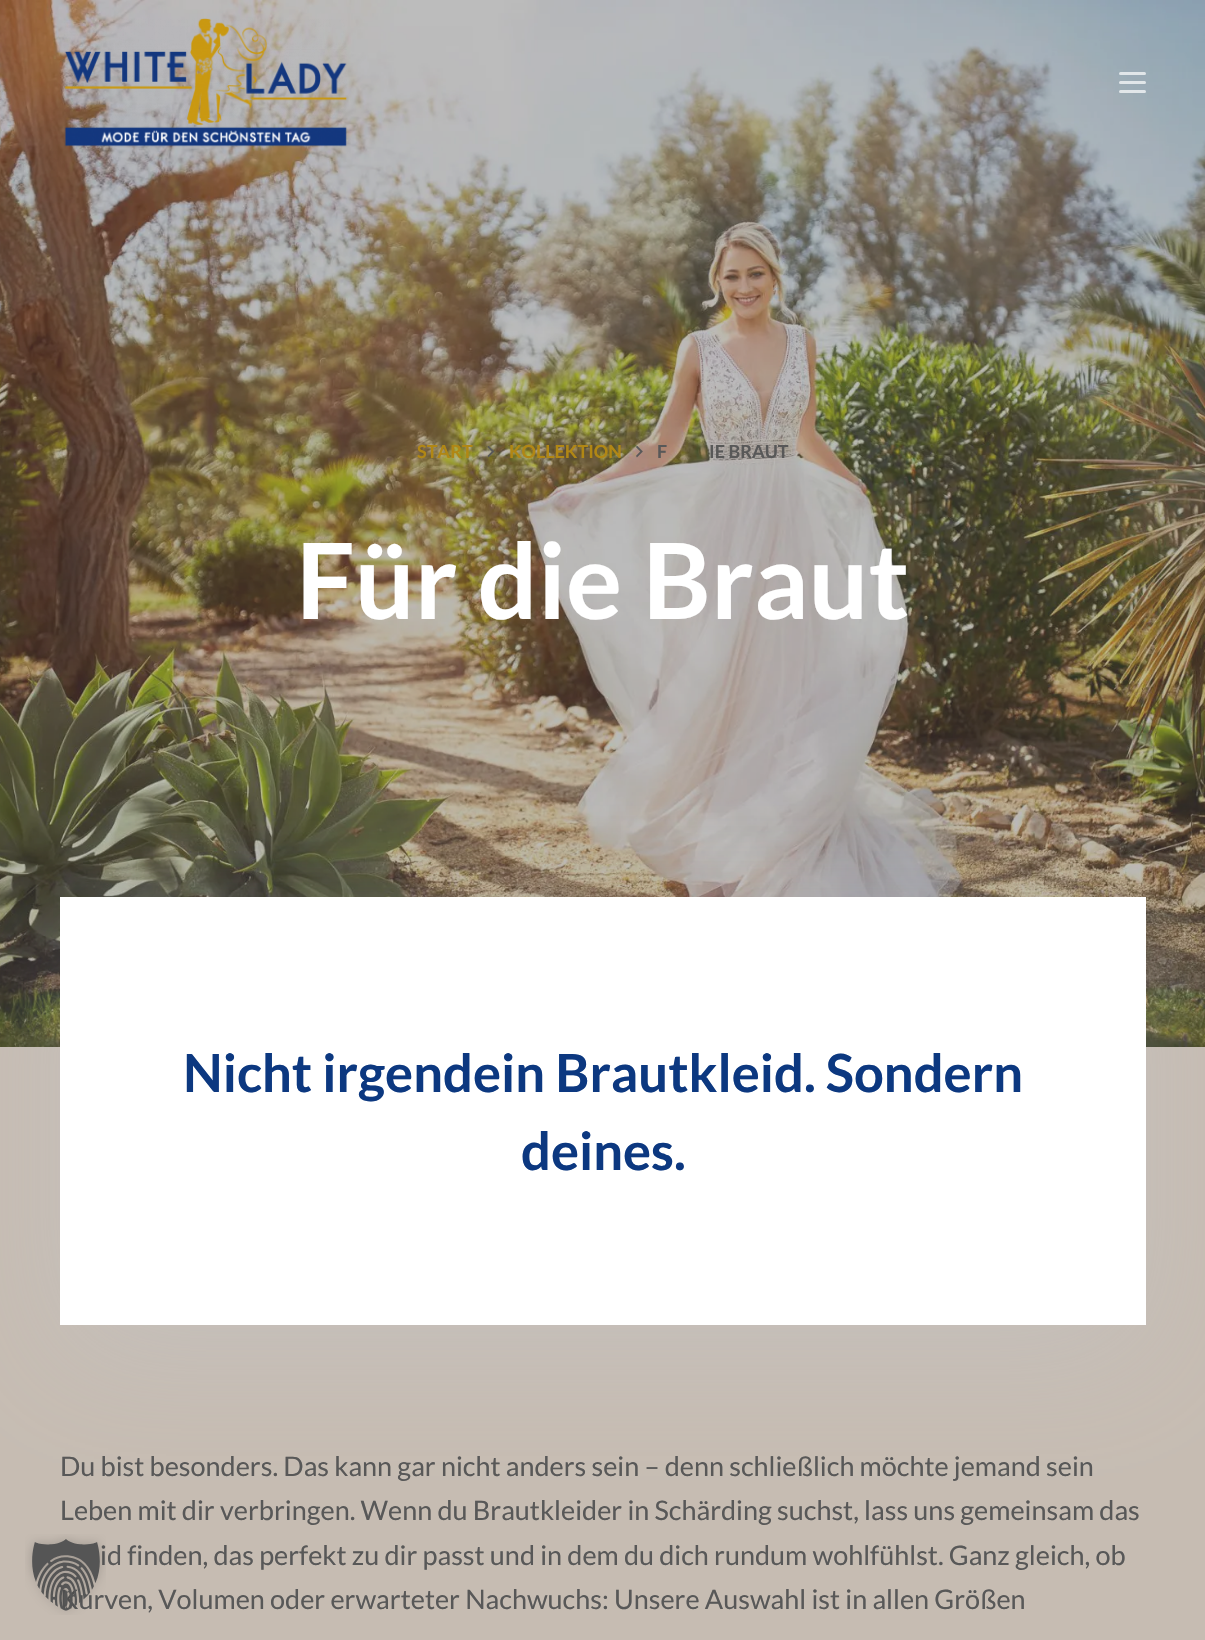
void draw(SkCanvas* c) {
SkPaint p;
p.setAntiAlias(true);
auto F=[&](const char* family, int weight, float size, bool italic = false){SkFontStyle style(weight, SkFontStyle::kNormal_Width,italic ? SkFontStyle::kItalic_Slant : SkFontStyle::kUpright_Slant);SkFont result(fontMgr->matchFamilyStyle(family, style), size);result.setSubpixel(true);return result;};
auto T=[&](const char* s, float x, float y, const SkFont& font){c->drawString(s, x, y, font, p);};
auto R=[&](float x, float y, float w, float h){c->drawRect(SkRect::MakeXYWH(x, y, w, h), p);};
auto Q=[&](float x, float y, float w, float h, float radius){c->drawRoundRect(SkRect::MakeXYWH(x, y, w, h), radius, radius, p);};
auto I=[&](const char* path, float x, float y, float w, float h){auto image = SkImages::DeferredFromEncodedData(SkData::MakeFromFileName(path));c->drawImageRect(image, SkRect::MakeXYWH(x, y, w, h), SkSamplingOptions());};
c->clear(0xffc6bcb2);
I("2.png",0,0,1205,1047);
I("1.png",64,18,283,129);
p.setColor(0xffe1e6e9);
Q(1119,72,27,3,1.5);
p.setColor(0xb3ffffff);
Q(1119,81,27,3,1.5);
Q(1119,90,27,3,1.5);
auto f1 = F("Lato",700,18);
p.setColor(0xffb18714);
T("START",417,458,f1);
I("3.png",487,446,8,12);
T("KOLLEKTION",509,458,f1);
I("4.png",636,446,7,12);
p.setColor(0xff585858);
T("F",657,458,f1);
T("IE BRAUT",709,458,f1);
auto f2 = F("Lato",700,105);
p.setColor(0xffffffff);
T("Für die Braut",296,619,f2);
p.setColor(0x40c1c7d4);
p.setMaskFilter(SkMaskFilter::MakeBlur(kNormal_SkBlurStyle, 60));
c->drawRect(SkRect::MakeXYWH(60,927,1086,428),p);
p.setMaskFilter(nullptr);
p.setColor(0xffffffff);
R(60,897,1086,428);
auto f3 = F("Lato",700,52.5);
p.setColor(0xff0c3880);
T("Nicht irgendein Brautkleid. Sondern",183,1092,f3);
T("deines.",521,1170,f3);
auto f4 = F("Lato",400,27);
p.setColor(0xff585858);
T("Du bist besonders. Das kann gar nicht anders sein – denn schließlich möchte jemand sein",60,1476,f4);
T("Leben mit dir verbringen. Wenn du Brautkleider in Schärding suchst, lass uns gemeinsam das",60,1520,f4);
T("id finden, das perfekt zu dir passt und in dem du dich rundum wohlfühlst. Ganz gleich, ob",100,1565,f4);
T("Kurven, Volumen oder erwarteter Nachwuchs: Unsere Auswahl ist in allen Größen",60,1609,f4);
I("5.png",25,1534,81,81);
}
